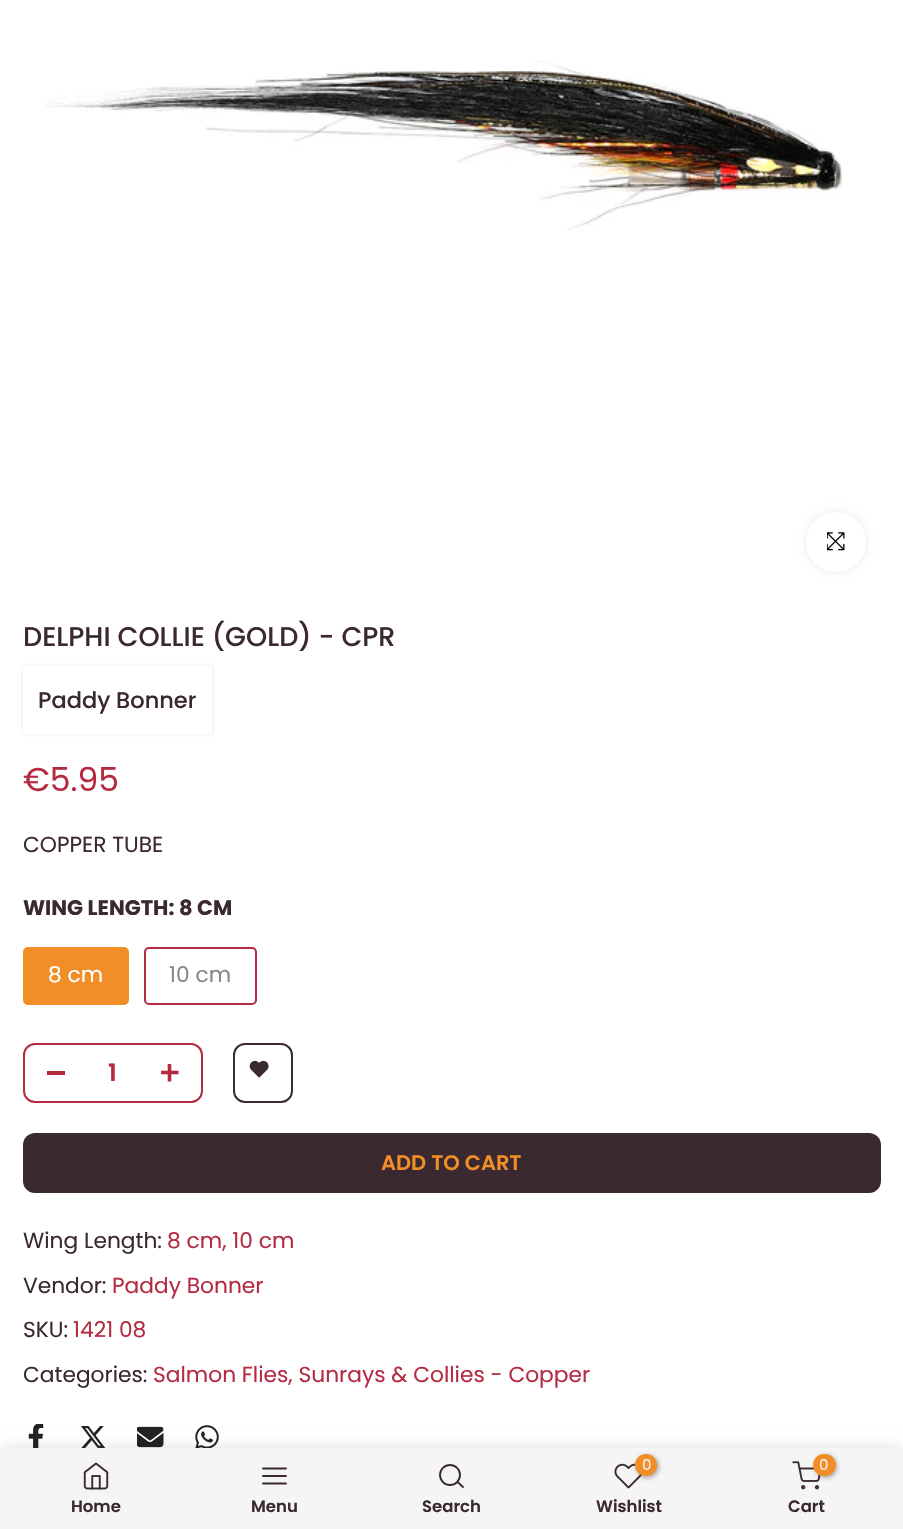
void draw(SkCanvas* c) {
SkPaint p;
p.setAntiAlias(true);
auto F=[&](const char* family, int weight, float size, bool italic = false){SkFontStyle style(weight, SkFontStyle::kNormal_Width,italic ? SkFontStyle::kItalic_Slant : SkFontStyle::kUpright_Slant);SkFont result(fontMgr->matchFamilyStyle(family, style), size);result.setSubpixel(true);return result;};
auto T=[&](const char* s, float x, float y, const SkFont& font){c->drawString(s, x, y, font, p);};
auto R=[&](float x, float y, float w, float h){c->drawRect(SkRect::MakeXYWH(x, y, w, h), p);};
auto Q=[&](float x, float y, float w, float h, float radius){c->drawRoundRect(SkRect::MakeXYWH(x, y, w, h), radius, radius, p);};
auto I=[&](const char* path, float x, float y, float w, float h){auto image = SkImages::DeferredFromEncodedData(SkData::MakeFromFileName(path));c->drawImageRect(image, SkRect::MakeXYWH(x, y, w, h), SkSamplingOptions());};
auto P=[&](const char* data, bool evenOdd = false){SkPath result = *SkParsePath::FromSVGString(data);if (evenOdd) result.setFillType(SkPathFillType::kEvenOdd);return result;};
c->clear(0xffffffff);
I("1.png",45,60,801,171);
p.setColor(0x17000000);
p.setMaskFilter(SkMaskFilter::MakeBlur(kNormal_SkBlurStyle, 4));
c->drawRoundRect(SkRect::MakeXYWH(806,512,60,60),30,30,p);
p.setMaskFilter(nullptr);
p.setColor(0xffffffff);
c->drawCircle(836,542,30,p);
I("2.png",827,532,18,19);
auto f1 = F("Poppins",500,27);
p.setColor(0xff3b2931);
T("DELPHI COLLIE (GOLD) - CPR",23,646,f1);
p.setColor(0x1f000000);
p.setMaskFilter(SkMaskFilter::MakeBlur(kNormal_SkBlurStyle, 1.5));
c->drawRect(SkRect::MakeXYWH(23,666,189,68),p);
p.setMaskFilter(nullptr);
p.setColor(0xffffffff);
R(23,666,189,68);
auto f2 = F("Poppins",500,22.5);
p.setColor(0xff3b2931);
T("Paddy Bonner",38,708,f2);
auto f3 = F("Poppins",400,33);
p.setColor(0xffb52a41);
T("€5.95",23,791,f3);
auto f4 = F("Poppins",400,21.75);
p.setColor(0xff3b2931);
T("COPPER TUBE",23,852,f4);
auto f5 = F("Poppins",700,21);
T("WING LENGTH: 8 CM",23,915,f5);
p.setColor(0xfff18e28);
c->drawRoundRect(SkRect::MakeXYWH(24,948,104,56),4,4,p);
p.setStroke(true);
p.setStrokeWidth(2);
c->drawRoundRect(SkRect::MakeXYWH(24,948,104,56),4,4,p);
p.setStroke(false);
p.setColor(0xffffffff);
T("8 cm",48,982,f4);
p.setStroke(true);
p.setColor(0xffb52a41);
c->drawRoundRect(SkRect::MakeXYWH(145,948,111,56),4,4,p);
p.setStroke(false);
p.setColor(0xff878787);
T("10 cm",169,982,f4);
p.setStroke(true);
p.setColor(0xffb52a41);
c->drawRoundRect(SkRect::MakeXYWH(24,1044,178,58),11,11,p);
p.setStroke(false);
R(47,1071,18,4);
auto f6 = F("Poppins",600,24);
T("1",108,1081,f6);
I("3.png",161,1064,18,18);
p.setStroke(true);
p.setColor(0xff3b2931);
c->drawRoundRect(SkRect::MakeXYWH(234,1044,58,58),11,11,p);
I("4.png",249,1060,20,18);
p.setStroke(false);
Q(23,1133,858,60,12);
auto f7 = F("Poppins",600,21);
p.setColor(0xfff18e28);
T("ADD TO CART",381,1170,f7);
p.setColor(0xff3b2931);
T("Wing Length:",23,1248,f4);
p.setColor(0xffb52a41);
T("8 cm, 10 cm",167,1248,f4);
p.setColor(0xff3b2931);
T("Vendor:",23,1293,f4);
p.setColor(0xffb52a41);
T("Paddy Bonner",112,1293,f4);
p.setColor(0xff3b2931);
T("SKU:",23,1337,f4);
p.setColor(0xffb52a41);
T("1421 08",73,1337,f4);
p.setColor(0xff3b2931);
T("Categories:",23,1382,f4);
p.setColor(0xffb52a41);
T("Salmon Flies, Sunrays & Collies - Copper",153,1382,f4);
I("5.png",28,1424,16,24);
I("6.png",81,1426,25,22);
I("7.png",137,1426,27,22);
I("8.png",195,1425,24,23);
p.setColor(0x1f000000);
p.setMaskFilter(SkMaskFilter::MakeBlur(kNormal_SkBlurStyle, 7));
c->drawRect(SkRect::MakeXYWH(0,1448,903,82),p);
p.setMaskFilter(nullptr);
p.setColor(0xfff5f5f6);
R(0,1448,903,81);
I("9.png",83,1462,26,28);
auto f8 = F("Poppins",600,16.5);
p.setColor(0xff3b2931);
T("Home",71,1512,f8);
p.setStroke(true);
p.setStrokeWidth(1.9);
p.setStrokeCap(SkPaint::kRound_Cap);
p.setStrokeJoin(SkPaint::kRound_Join);
c->drawPath(P("M263 1476h23m-23-7.5h23m-23 15h23"),p);
p.setStroke(false);
T("Menu",251,1512,f8);
p.setStroke(true);
p.setStrokeCap(SkPaint::kButt_Cap);
p.setStrokeJoin(SkPaint::kMiter_Join);
c->drawCircle(450,1475,10,p);
p.setStrokeCap(SkPaint::kRound_Cap);
p.setStrokeJoin(SkPaint::kRound_Join);
c->drawPath(P("M463 1487l-5.5-5"),p);
p.setStroke(false);
T("Search",422,1512,f8);
I("10.png",614,1463,28,26);
p.setColor(0x4d000000);
p.setMaskFilter(SkMaskFilter::MakeBlur(kNormal_SkBlurStyle, 2));
c->drawRoundRect(SkRect::MakeXYWH(636,1455,23,23),11.5,11.5,p);
p.setMaskFilter(nullptr);
p.setColor(0xfff18e28);
c->drawCircle(646,1465,11,p);
auto f9 = F("Poppins",400,15);
p.setColor(0xfff5f5f6);
T("0",642,1470,f9);
p.setColor(0xff3b2931);
T("Wishlist",596,1512,f8);
I("11.png",792,1461,29,29);
p.setColor(0x4d000000);
p.setMaskFilter(SkMaskFilter::MakeBlur(kNormal_SkBlurStyle, 2));
c->drawRoundRect(SkRect::MakeXYWH(815,1455,22,23),11,11,p);
p.setMaskFilter(nullptr);
p.setColor(0xfff18e28);
Q(813,1454,23,22,11);
p.setColor(0xfff5f5f6);
T("0",819,1470,f9);
p.setColor(0xff3b2931);
T("Cart",788,1512,f8);
}
